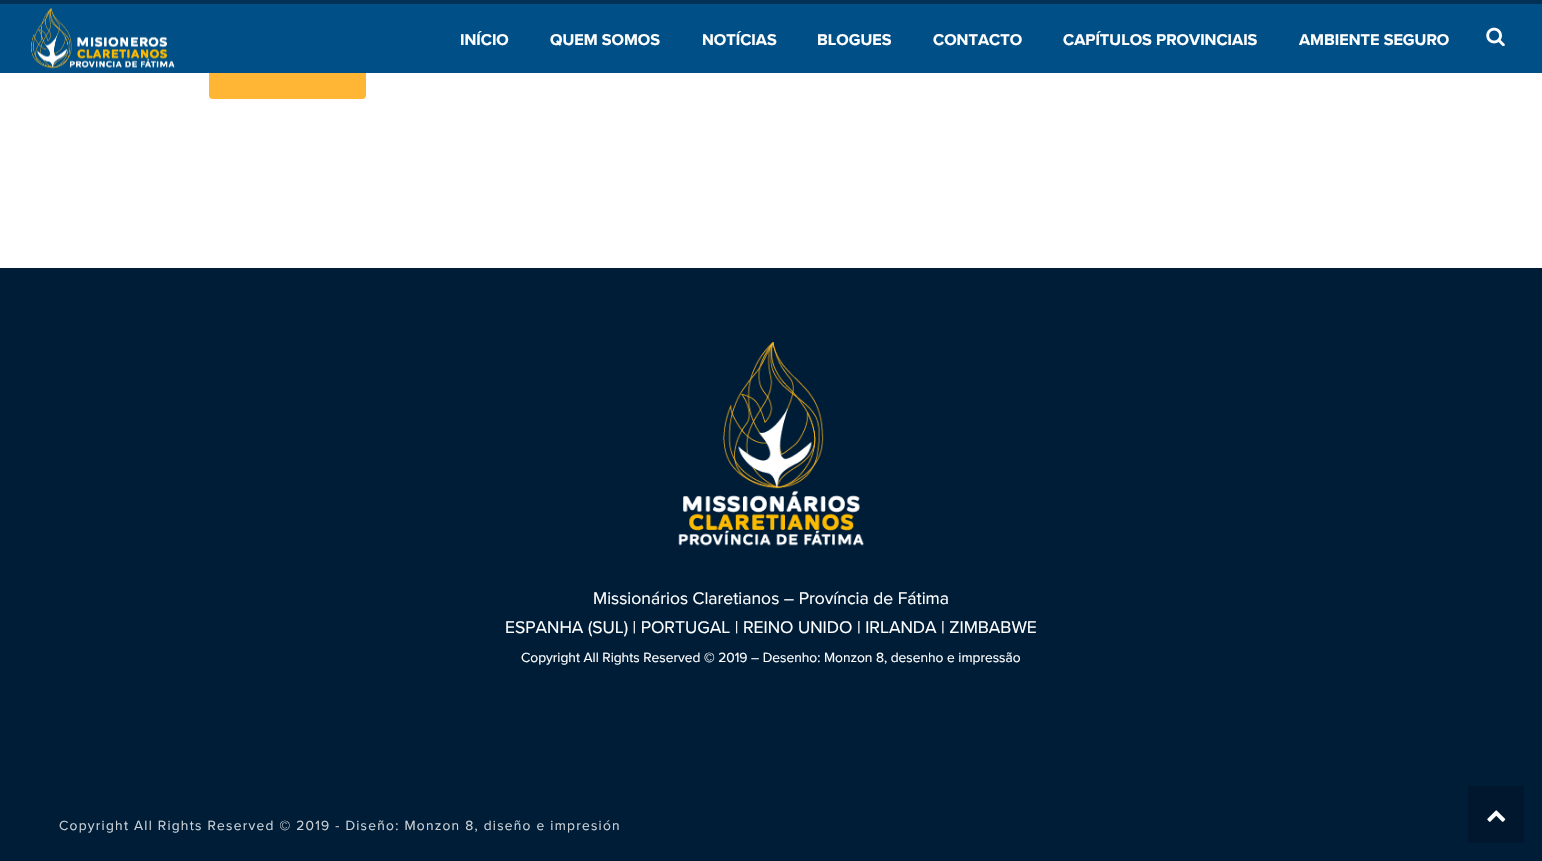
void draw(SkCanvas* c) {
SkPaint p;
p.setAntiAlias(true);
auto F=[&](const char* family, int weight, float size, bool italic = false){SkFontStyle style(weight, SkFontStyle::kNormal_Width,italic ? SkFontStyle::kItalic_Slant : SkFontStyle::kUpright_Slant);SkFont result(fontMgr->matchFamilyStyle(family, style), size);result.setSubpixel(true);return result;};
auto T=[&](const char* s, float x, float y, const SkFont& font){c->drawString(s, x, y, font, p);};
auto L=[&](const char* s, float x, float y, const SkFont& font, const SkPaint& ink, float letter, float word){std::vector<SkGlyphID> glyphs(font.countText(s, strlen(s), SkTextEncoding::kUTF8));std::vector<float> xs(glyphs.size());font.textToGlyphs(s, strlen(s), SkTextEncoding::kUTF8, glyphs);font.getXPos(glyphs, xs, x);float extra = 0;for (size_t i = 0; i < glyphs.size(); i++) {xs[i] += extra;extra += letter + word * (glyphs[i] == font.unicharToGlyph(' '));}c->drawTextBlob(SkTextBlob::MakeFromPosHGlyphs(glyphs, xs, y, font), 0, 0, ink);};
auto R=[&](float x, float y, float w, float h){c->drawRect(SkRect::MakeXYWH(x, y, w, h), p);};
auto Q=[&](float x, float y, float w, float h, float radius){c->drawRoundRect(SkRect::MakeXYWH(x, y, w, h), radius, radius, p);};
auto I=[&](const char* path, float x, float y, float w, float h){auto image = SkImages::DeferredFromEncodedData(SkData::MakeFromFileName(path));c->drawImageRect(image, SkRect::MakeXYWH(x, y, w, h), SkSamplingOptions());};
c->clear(0xffffffff);
p.setColor(0xff023155);
R(0,0,1542,4);
p.setColor(0xffffb635);
Q(209,49,157,50,4);
p.setColor(0xff004f86);
R(0,4,1542,69);
I("1.png",31,7,144,62);
auto f1 = F("Proxima Nova",700,16.25);
p.setColor(0xffffffff);
T("INÍCIO",460,45,f1);
T("QUEM SOMOS",550,45,f1);
T("NOTÍCIAS",702,45,f1);
T("BLOGUES",817,45,f1);
T("CONTACTO",933,45,f1);
T("CAPÍTULOS PROVINCIAIS",1063,45,f1);
T("AMBIENTE SEGURO",1299,45,f1);
I("2.png",1486,27,19,19);
p.setColor(0xff001d38);
R(0,268,1542,593);
I("3.png",678,342,186,204);
auto f2 = F("Proxima Nova",400,17.5);
p.setColor(0xffffffff);
T("Missionários Claretianos – Província de Fátima",593,604,f2);
T("ESPANHA (SUL) | PORTUGAL | REINO UNIDO | IRLANDA | ZIMBABWE",505,633,f2);
auto f3 = F("Proxima Nova",400,13.75);
T("Copyright All Rights Reserved © 2019 – Desenho: Monzon 8, desenho e impressão",521,662,f3);
p.setColor(0xffccd2d7);
L("Copyright All Rights Reserved © 2019 - Diseño: Monzon 8, diseño e impresión",59,830,f3,p,1.25,0);
p.setColor(0xff00172d);
R(1468,786,56,57);
I("4.png",1487,810,19,12);
}
